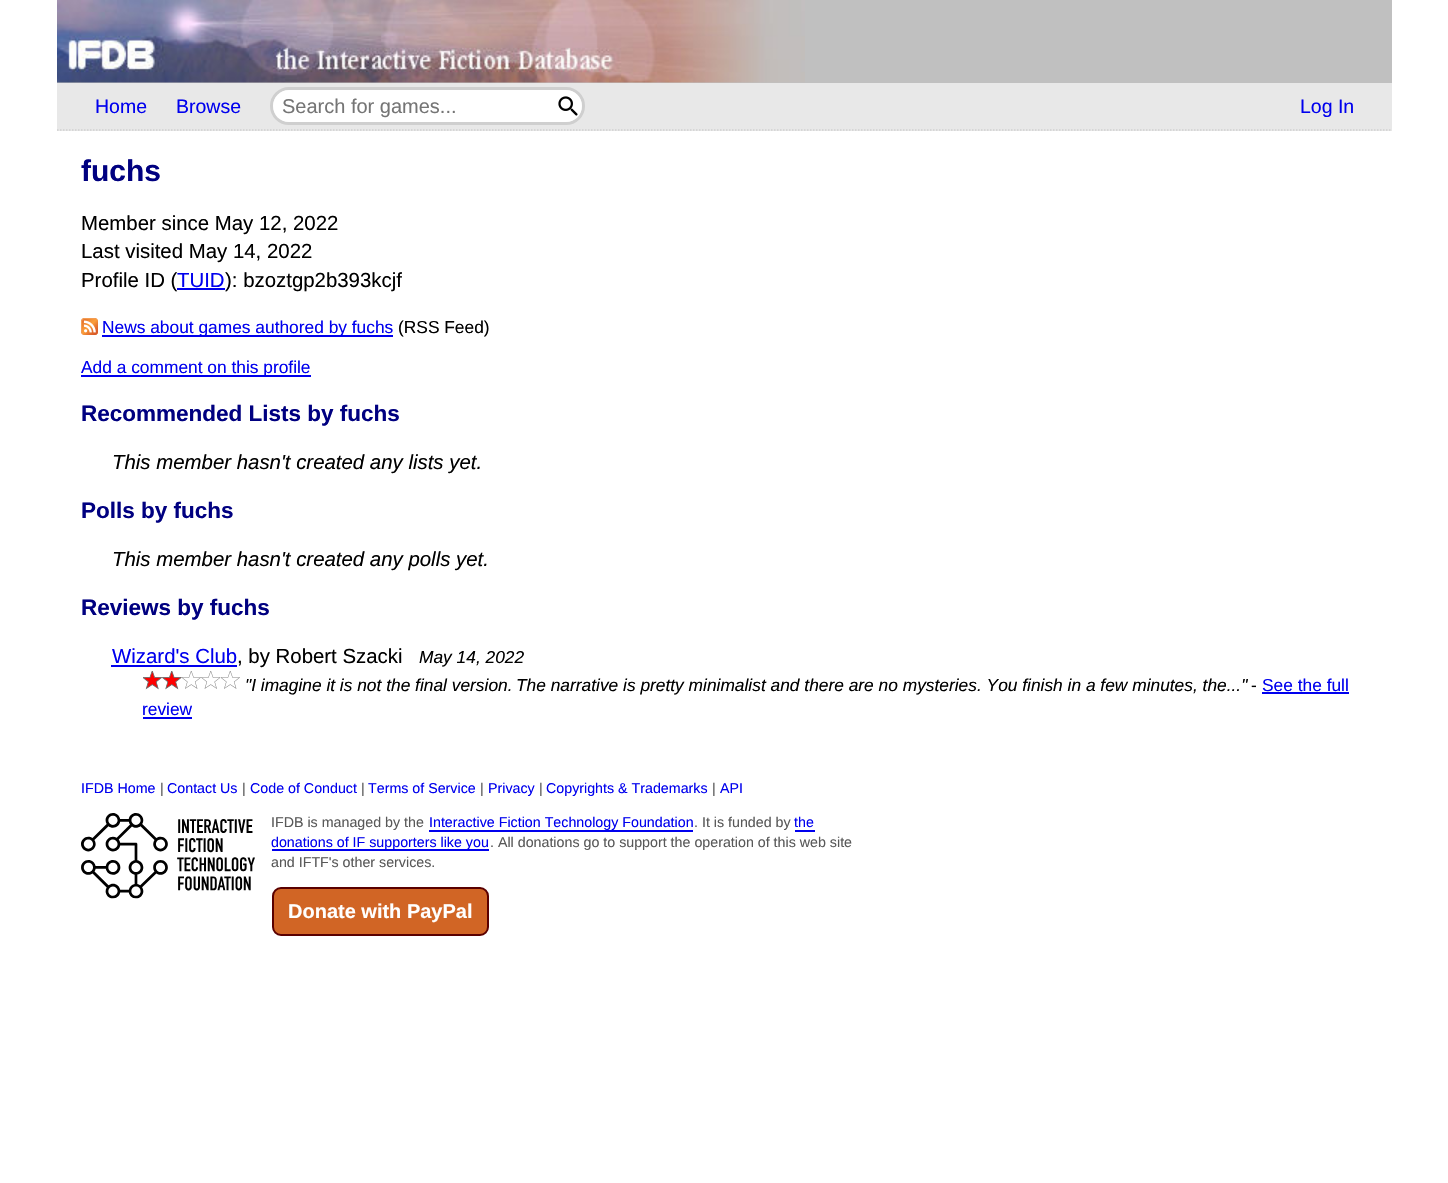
void draw(SkCanvas* c) {
SkPaint p;
p.setAntiAlias(true);
auto F=[&](const char* family, int weight, float size, bool italic = false){SkFontStyle style(weight, SkFontStyle::kNormal_Width,italic ? SkFontStyle::kItalic_Slant : SkFontStyle::kUpright_Slant);SkFont result(fontMgr->matchFamilyStyle(family, style), size);result.setSubpixel(true);return result;};
auto T=[&](const char* s, float x, float y, const SkFont& font){c->drawString(s, x, y, font, p);};
auto R=[&](float x, float y, float w, float h){c->drawRect(SkRect::MakeXYWH(x, y, w, h), p);};
auto I=[&](const char* path, float x, float y, float w, float h){auto image = SkImages::DeferredFromEncodedData(SkData::MakeFromFileName(path));c->drawImageRect(image, SkRect::MakeXYWH(x, y, w, h), SkSamplingOptions());};
auto P=[&](const char* data, bool evenOdd = false){SkPath result = *SkParsePath::FromSVGString(data);if (evenOdd) result.setFillType(SkPathFillType::kEvenOdd);return result;};
c->clear(0xffffffff);
p.setColor(0xffe8e8e8);
R(57,83,1335,48);
p.setStroke(true);
p.setStrokeWidth(1.5);
p.setColor(0xffd0d0d0);
p.setPathEffect(SkDashPathEffect::Make({{1.5f,1.5f}}, 0));
c->drawPath(P("M57 130h1335"),p);
p.setPathEffect(nullptr);
p.setStroke(false);
p.setColor(0xffc0c0c0);
R(57,0,1335,83);
I("1.png",57,0,748,83);
auto f1 = F("Liberation Sans",400,19.5);
p.setColor(0xff0000ee);
T("Home",95,113,f1);
T("Browse",176,113,f1);
p.setStroke(true);
p.setStrokeWidth(3);
p.setColor(0xffcfcfcf);
c->drawRoundRect(SkRect::MakeXYWH(271.5,88.5,312,35),17.5,17.5,p);
p.setStroke(false);
p.setColor(0xffffffff);
c->drawPath(P("M289 90h265v32h-265c-9 0-16-7-16-16c0-9 7-16 16-16z"),p);
auto f2 = F("Liberation Sans",400,20);
p.setColor(0xff757575);
T("Search for games...",282,113,f2);
p.setColor(0xffffffff);
c->drawPath(P("M554 90h12c9 0 16 7 16 16c0 9-7 16-16 16h-12z"),p);
I("2.png",558,96,20,20);
p.setColor(0xff0000ee);
T("Log In",1300,113,f1);
auto f3 = F("Liberation Sans",700,30);
p.setColor(0xff000080);
T("fuchs",81,181,f3);
auto f4 = F("Liberation Sans",400,20.4);
p.setColor(0xff000000);
T("Member since May 12, 2022",81,230,f4);
T("Last visited May 14, 2022",81,258,f4);
T("Profile ID (",81,287,f4);
p.setColor(0xff0000ee);
T("TUID",177,287,f4);
R(177,288,48,2);
p.setColor(0xff000000);
T("): bzoztgp2b393kcjf",225,287,f4);
I("3.png",81,318,17,17);
p.setColor(0xff0000ee);
R(102,335,291,2);
auto f5 = F("Liberation Sans",400,17.35);
T("News about games authored by fuchs",102,333,f5);
p.setColor(0xff000000);
T("(RSS Feed)",398,333,f5);
p.setColor(0xff0000ee);
R(81,375,230,2);
T("Add a comment on this profile",81,373,f5);
auto f6 = F("Liberation Sans",700,22.5);
p.setColor(0xff000080);
T("Recommended Lists by fuchs",81,421,f6);
auto f7 = F("Liberation Sans",400,20.4,true);
p.setColor(0xff000000);
T("This member hasn't created any lists yet.",112,469,f7);
p.setColor(0xff000080);
T("Polls by fuchs",81,518,f6);
p.setColor(0xff000000);
T("This member hasn't created any polls yet.",112,566,f7);
p.setColor(0xff000080);
T("Reviews by fuchs",81,615,f6);
p.setColor(0xff0000ee);
T("Wizard's Club",112,663,f4);
R(111,665,126,2);
p.setColor(0xff000000);
T(", by Robert Szacki",237,663,f4);
auto f8 = F("Liberation Sans",400,17.35,true);
T("May 14, 2022",419,663,f8);
I("4.png",143,671,19,19);
I("5.png",162,671,20,19);
I("6.png",182,671,19,18);
I("7.png",201,671,20,18);
I("6.png",221,671,19,18);
T("\"I imagine it is not the final version.",245,691,f8);
T("The narrative is pretty minimalist and there are no mysteries. You finish in a few minutes, the...\"",516,691,f8);
T("-",1251,691,f5);
p.setColor(0xff0000ee);
T("See the full",1262,691,f5);
R(1262,692,87,2);
T("review",142,715,f5);
R(143,717,49,2);
auto f9 = F("Liberation Sans",400,14.25);
T("IFDB Home",81,793,f9);
p.setColor(0xff595959);
T("|",160,793,f9);
p.setColor(0xff0000ee);
T("Contact Us",167,793,f9);
p.setColor(0xff595959);
T("|",242,793,f9);
p.setColor(0xff0000ee);
T("Code of Conduct",250,793,f9);
p.setColor(0xff595959);
T("|",361,793,f9);
p.setColor(0xff0000ee);
T("Terms of Service",368,793,f9);
p.setColor(0xff595959);
T("|",480,793,f9);
p.setColor(0xff0000ee);
T("Privacy",488,793,f9);
p.setColor(0xff595959);
T("|",539,793,f9);
p.setColor(0xff0000ee);
T("Copyrights & Trademarks",546,793,f9);
p.setColor(0xff595959);
T("|",712,793,f9);
p.setColor(0xff0000ee);
T("API",720,793,f9);
I("8.png",81,813,174,86);
p.setColor(0xff595959);
T("IFDB is managed by the",271,827,f9);
p.setColor(0xff0000ee);
T("Interactive Fiction Technology Foundation",429,827,f9);
R(429,830,264,2);
p.setColor(0xff595959);
T(". It is funded by",694,827,f9);
p.setColor(0xff0000ee);
T("the",794,827,f9);
R(795,830,20,2);
R(272,849,217,2);
T("donations of IF supporters like you",271,847,f9);
p.setColor(0xff595959);
T(". All donations go to support the operation of this web site",490,847,f9);
T("and IFTF's other services.",271,867,f9);
p.setColor(0xffd16525);
c->drawRoundRect(SkRect::MakeXYWH(273,888,215,47),8,8,p);
p.setStroke(true);
p.setStrokeWidth(2);
p.setColor(0xff5a0000);
c->drawRoundRect(SkRect::MakeXYWH(273,888,215,47),8,8,p);
auto f10 = F("Liberation Sans",700,20);
p.setStroke(false);
p.setColor(0xffffffff);
T("Donate with PayPal",288,918,f10);
}
